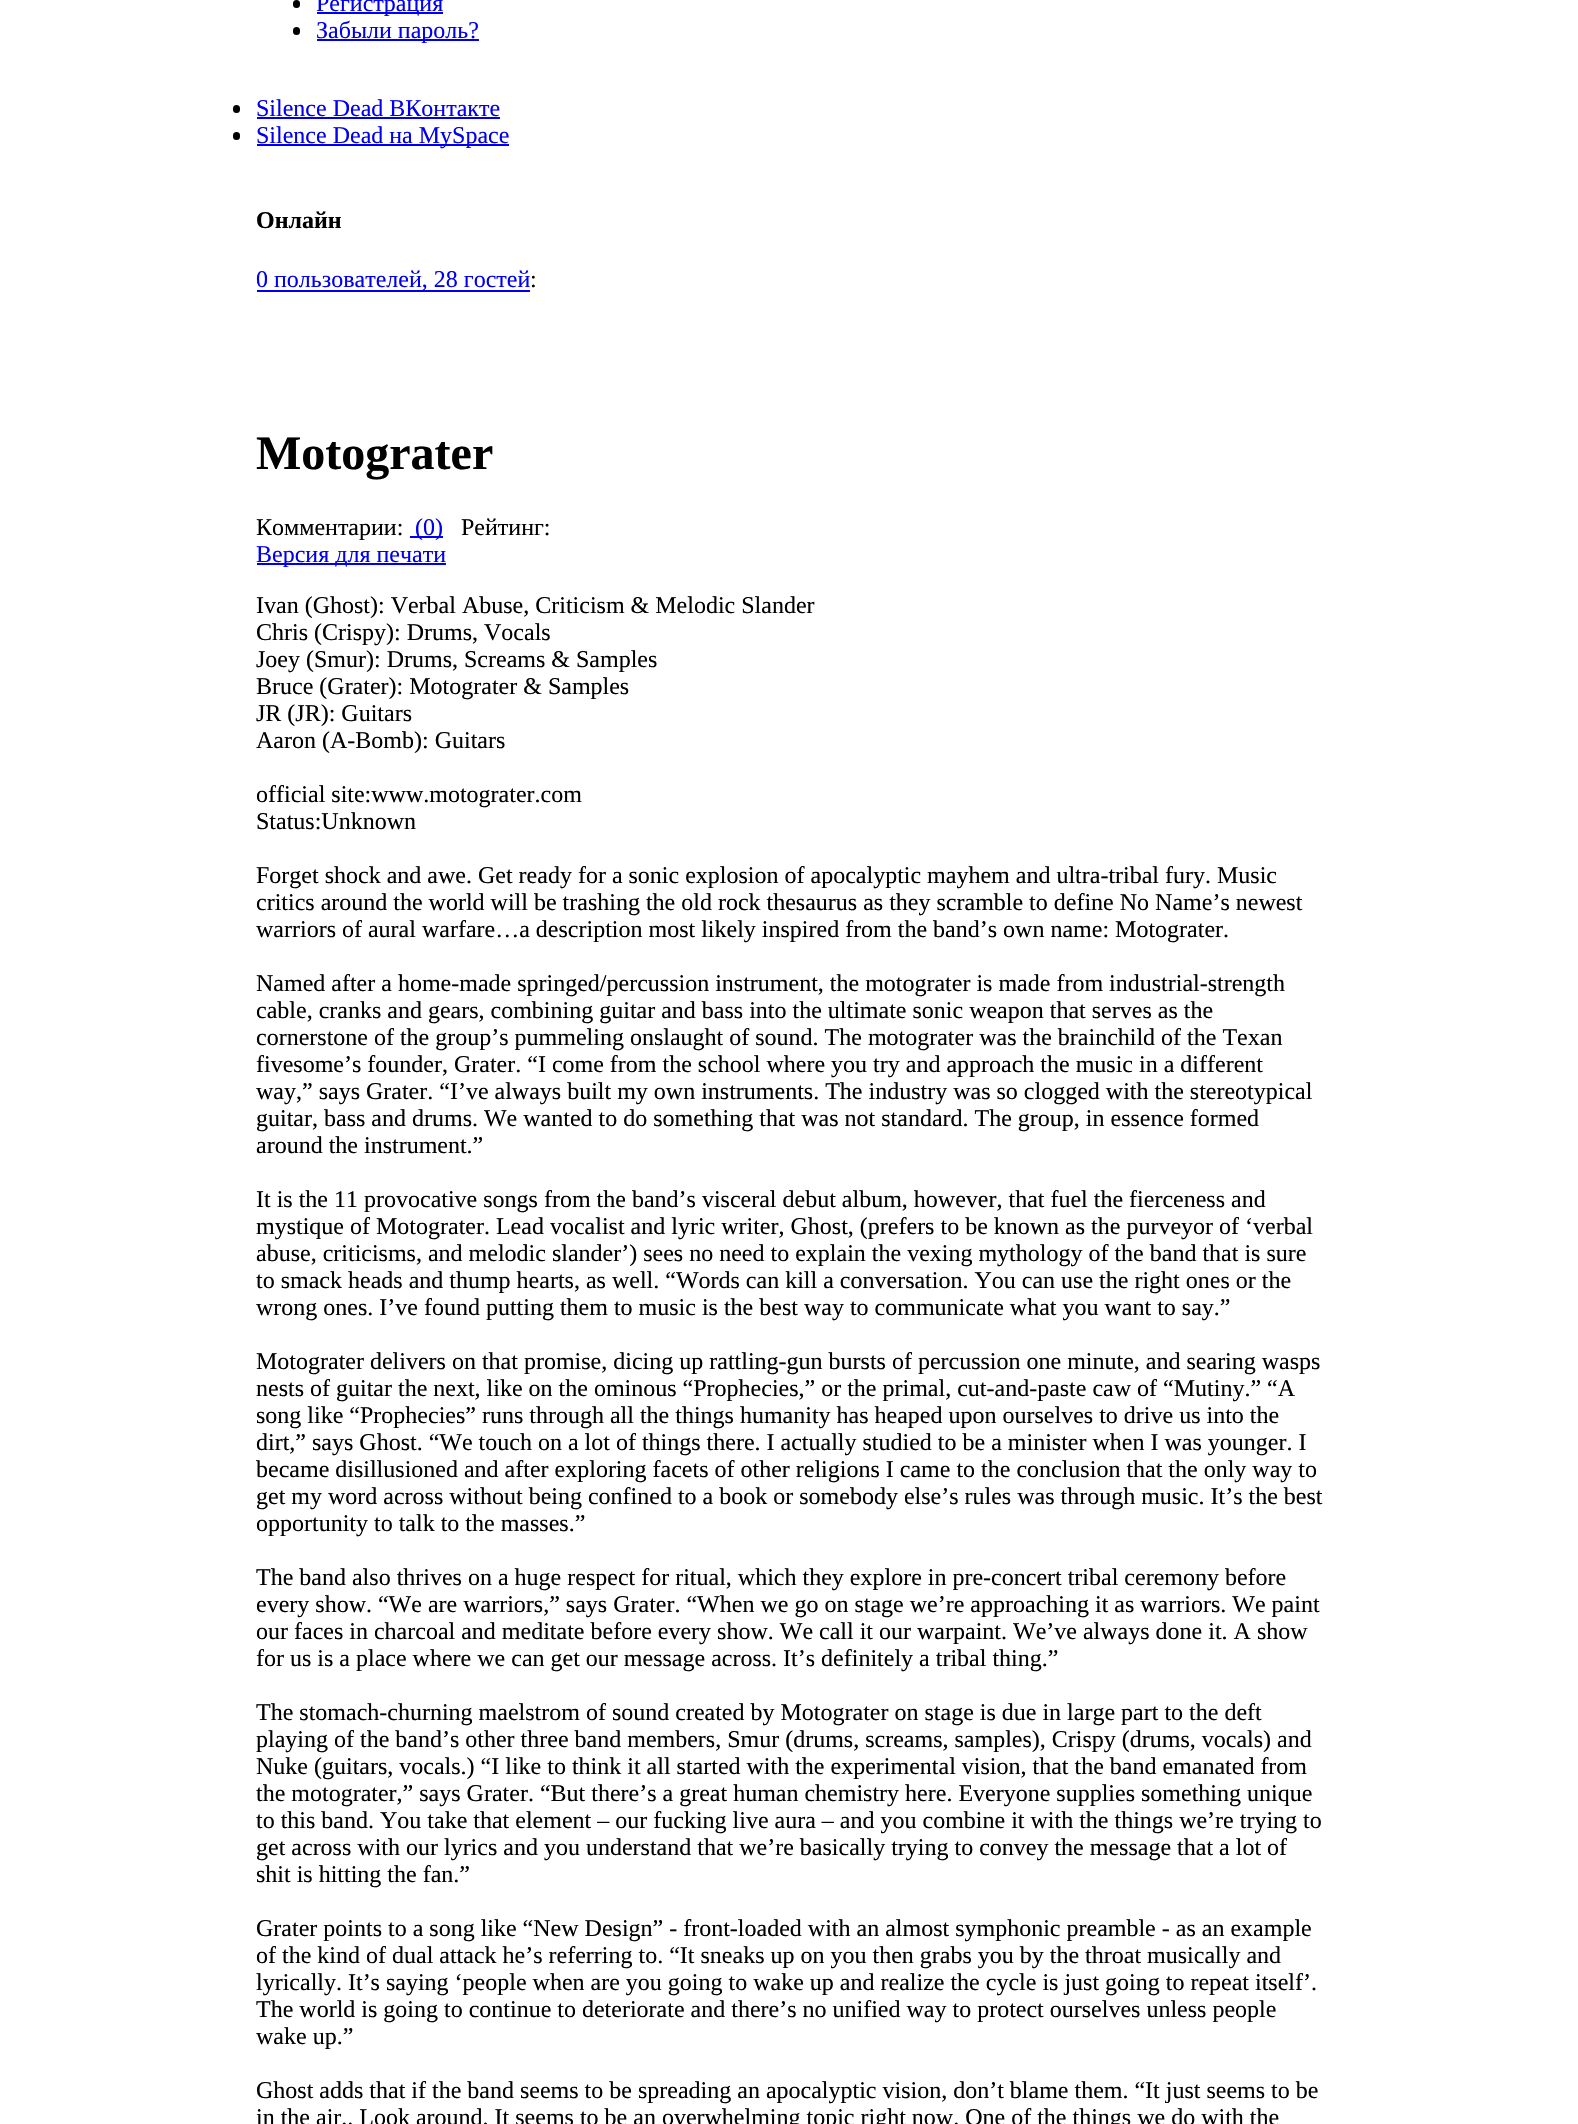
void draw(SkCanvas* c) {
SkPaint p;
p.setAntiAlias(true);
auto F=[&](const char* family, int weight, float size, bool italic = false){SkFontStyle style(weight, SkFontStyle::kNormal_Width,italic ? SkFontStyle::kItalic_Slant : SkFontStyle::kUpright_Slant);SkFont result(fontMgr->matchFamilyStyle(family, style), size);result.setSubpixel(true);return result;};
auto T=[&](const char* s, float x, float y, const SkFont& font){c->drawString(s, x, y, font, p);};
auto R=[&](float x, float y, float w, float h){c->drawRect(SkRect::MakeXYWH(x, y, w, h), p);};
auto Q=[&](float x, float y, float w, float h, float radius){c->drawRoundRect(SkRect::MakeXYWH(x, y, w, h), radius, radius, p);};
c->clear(0xffffffff);
p.setColor(0xff000000);
Q(293,0,7,8,3.5);
p.setColor(0xff0000ee);
R(317,12,126,2);
auto f1 = F("Liberation Serif",400,24);
T("Регистрация",316,11,f1);
p.setColor(0xff000000);
Q(293,27,7,8,3.5);
p.setColor(0xff0000ee);
R(317,39,162,2);
T("Забыли пароль?",316,38,f1);
p.setColor(0xff000000);
Q(233,105,7,8,3.5);
p.setColor(0xff0000ee);
T("Silence Dead ВКонтакте",256,116,f1);
R(257,117,243,2);
p.setColor(0xff000000);
Q(233,132,7,8,3.5);
p.setColor(0xff0000ee);
R(257,144,252,2);
T("Silence Dead на MySpace",256,143,f1);
auto f2 = F("Liberation Serif",700,24);
p.setColor(0xff000000);
T("Онлайн",256,228,f2);
p.setColor(0xff0000ee);
R(257,290,273,2);
T("0 пользователей, 28 гостей",256,287,f1);
p.setColor(0xff000000);
T(":",530,287,f1);
auto f3 = F("Liberation Serif",700,48);
T("Motograter",256,469,f3);
T("Комментарии:",256,535,f1);
p.setColor(0xff0000ee);
R(410,536,33,2);
T("(0)",415,535,f1);
p.setColor(0xff000000);
T("Рейтинг:",461,535,f1);
p.setColor(0xff0000ee);
R(257,563,189,2);
T("Версия для печати",256,562,f1);
p.setColor(0xff000000);
T("Ivan (Ghost): Verbal Abuse, Criticism & Melodic Slander",256,613,f1);
T("Chris (Crispy): Drums, Vocals",256,640,f1);
T("Joey (Smur): Drums, Screams & Samples",256,667,f1);
T("Bruce (Grater): Motograter & Samples",256,694,f1);
T("JR (JR): Guitars",256,721,f1);
T("Aaron (A-Bomb): Guitars",256,748,f1);
T("official site:www.motograter.com",256,802,f1);
T("Status:Unknown",256,829,f1);
T("Forget shock and awe. Get ready for a sonic explosion of apocalyptic mayhem and ultra-tribal fury. Music",256,883,f1);
T("critics around the world will be trashing the old rock thesaurus as they scramble to define No Name’s newest",256,910,f1);
T("warriors of aural warfare…a description most likely inspired from the band’s own name: Motograter.",256,937,f1);
T("Named after a home-made springed/percussion instrument, the motograter is made from industrial-strength",256,991,f1);
T("cable, cranks and gears, combining guitar and bass into the ultimate sonic weapon that serves as the",256,1018,f1);
T("cornerstone of the group’s pummeling onslaught of sound. The motograter was the brainchild of the Texan",256,1045,f1);
T("fivesome’s founder, Grater. “I come from the school where you try and approach the music in a different",256,1072,f1);
T("way,” says Grater. “I’ve always built my own instruments. The industry was so clogged with the stereotypical",256,1099,f1);
T("guitar, bass and drums. We wanted to do something that was not standard. The group, in essence formed",256,1126,f1);
T("around the instrument.”",256,1153,f1);
T("It is the 11 provocative songs from the band’s visceral debut album, however, that fuel the fierceness and",256,1207,f1);
T("mystique of Motograter. Lead vocalist and lyric writer, Ghost, (prefers to be known as the purveyor of ‘verbal",256,1234,f1);
T("abuse, criticisms, and melodic slander’) sees no need to explain the vexing mythology of the band that is sure",256,1261,f1);
T("to smack heads and thump hearts, as well. “Words can kill a conversation. You can use the right ones or the",256,1288,f1);
T("wrong ones. I’ve found putting them to music is the best way to communicate what you want to say.”",256,1315,f1);
T("Motograter delivers on that promise, dicing up rattling-gun bursts of percussion one minute, and searing wasps",256,1369,f1);
T("nests of guitar the next, like on the ominous “Prophecies,” or the primal, cut-and-paste caw of “Mutiny.” “A",256,1396,f1);
T("song like “Prophecies” runs through all the things humanity has heaped upon ourselves to drive us into the",256,1423,f1);
T("dirt,” says Ghost. “We touch on a lot of things there. I actually studied to be a minister when I was younger. I",256,1450,f1);
T("became disillusioned and after exploring facets of other religions I came to the conclusion that the only way to",256,1477,f1);
T("get my word across without being confined to a book or somebody else’s rules was through music. It’s the best",256,1504,f1);
T("opportunity to talk to the masses.”",256,1531,f1);
T("The band also thrives on a huge respect for ritual, which they explore in pre-concert tribal ceremony before",256,1585,f1);
T("every show. “We are warriors,” says Grater. “When we go on stage we’re approaching it as warriors. We paint",256,1612,f1);
T("our faces in charcoal and meditate before every show. We call it our warpaint. We’ve always done it. A show",256,1639,f1);
T("for us is a place where we can get our message across. It’s definitely a tribal thing.”",256,1666,f1);
T("The stomach-churning maelstrom of sound created by Motograter on stage is due in large part to the deft",256,1720,f1);
T("playing of the band’s other three band members, Smur (drums, screams, samples), Crispy (drums, vocals) and",256,1747,f1);
T("Nuke (guitars, vocals.) “I like to think it all started with the experimental vision, that the band emanated from",256,1774,f1);
T("the motograter,” says Grater. “But there’s a great human chemistry here. Everyone supplies something unique",256,1801,f1);
T("to this band. You take that element – our fucking live aura – and you combine it with the things we’re trying to",256,1828,f1);
T("get across with our lyrics and you understand that we’re basically trying to convey the message that a lot of",256,1855,f1);
T("shit is hitting the fan.”",256,1882,f1);
T("Grater points to a song like “New Design” - front-loaded with an almost symphonic preamble - as an example",256,1936,f1);
T("of the kind of dual attack he’s referring to. “It sneaks up on you then grabs you by the throat musically and",256,1963,f1);
T("lyrically. It’s saying ‘people when are you going to wake up and realize the cycle is just going to repeat itself’.",256,1990,f1);
T("The world is going to continue to deteriorate and there’s no unified way to protect ourselves unless people",256,2017,f1);
T("wake up.”",256,2044,f1);
T("Ghost adds that if the band seems to be spreading an apocalyptic vision, don’t blame them. “It just seems to be",256,2098,f1);
T("in the air.. Look around. It seems to be an overwhelming topic right now. One of the things we do with the",256,2125,f1);
}
